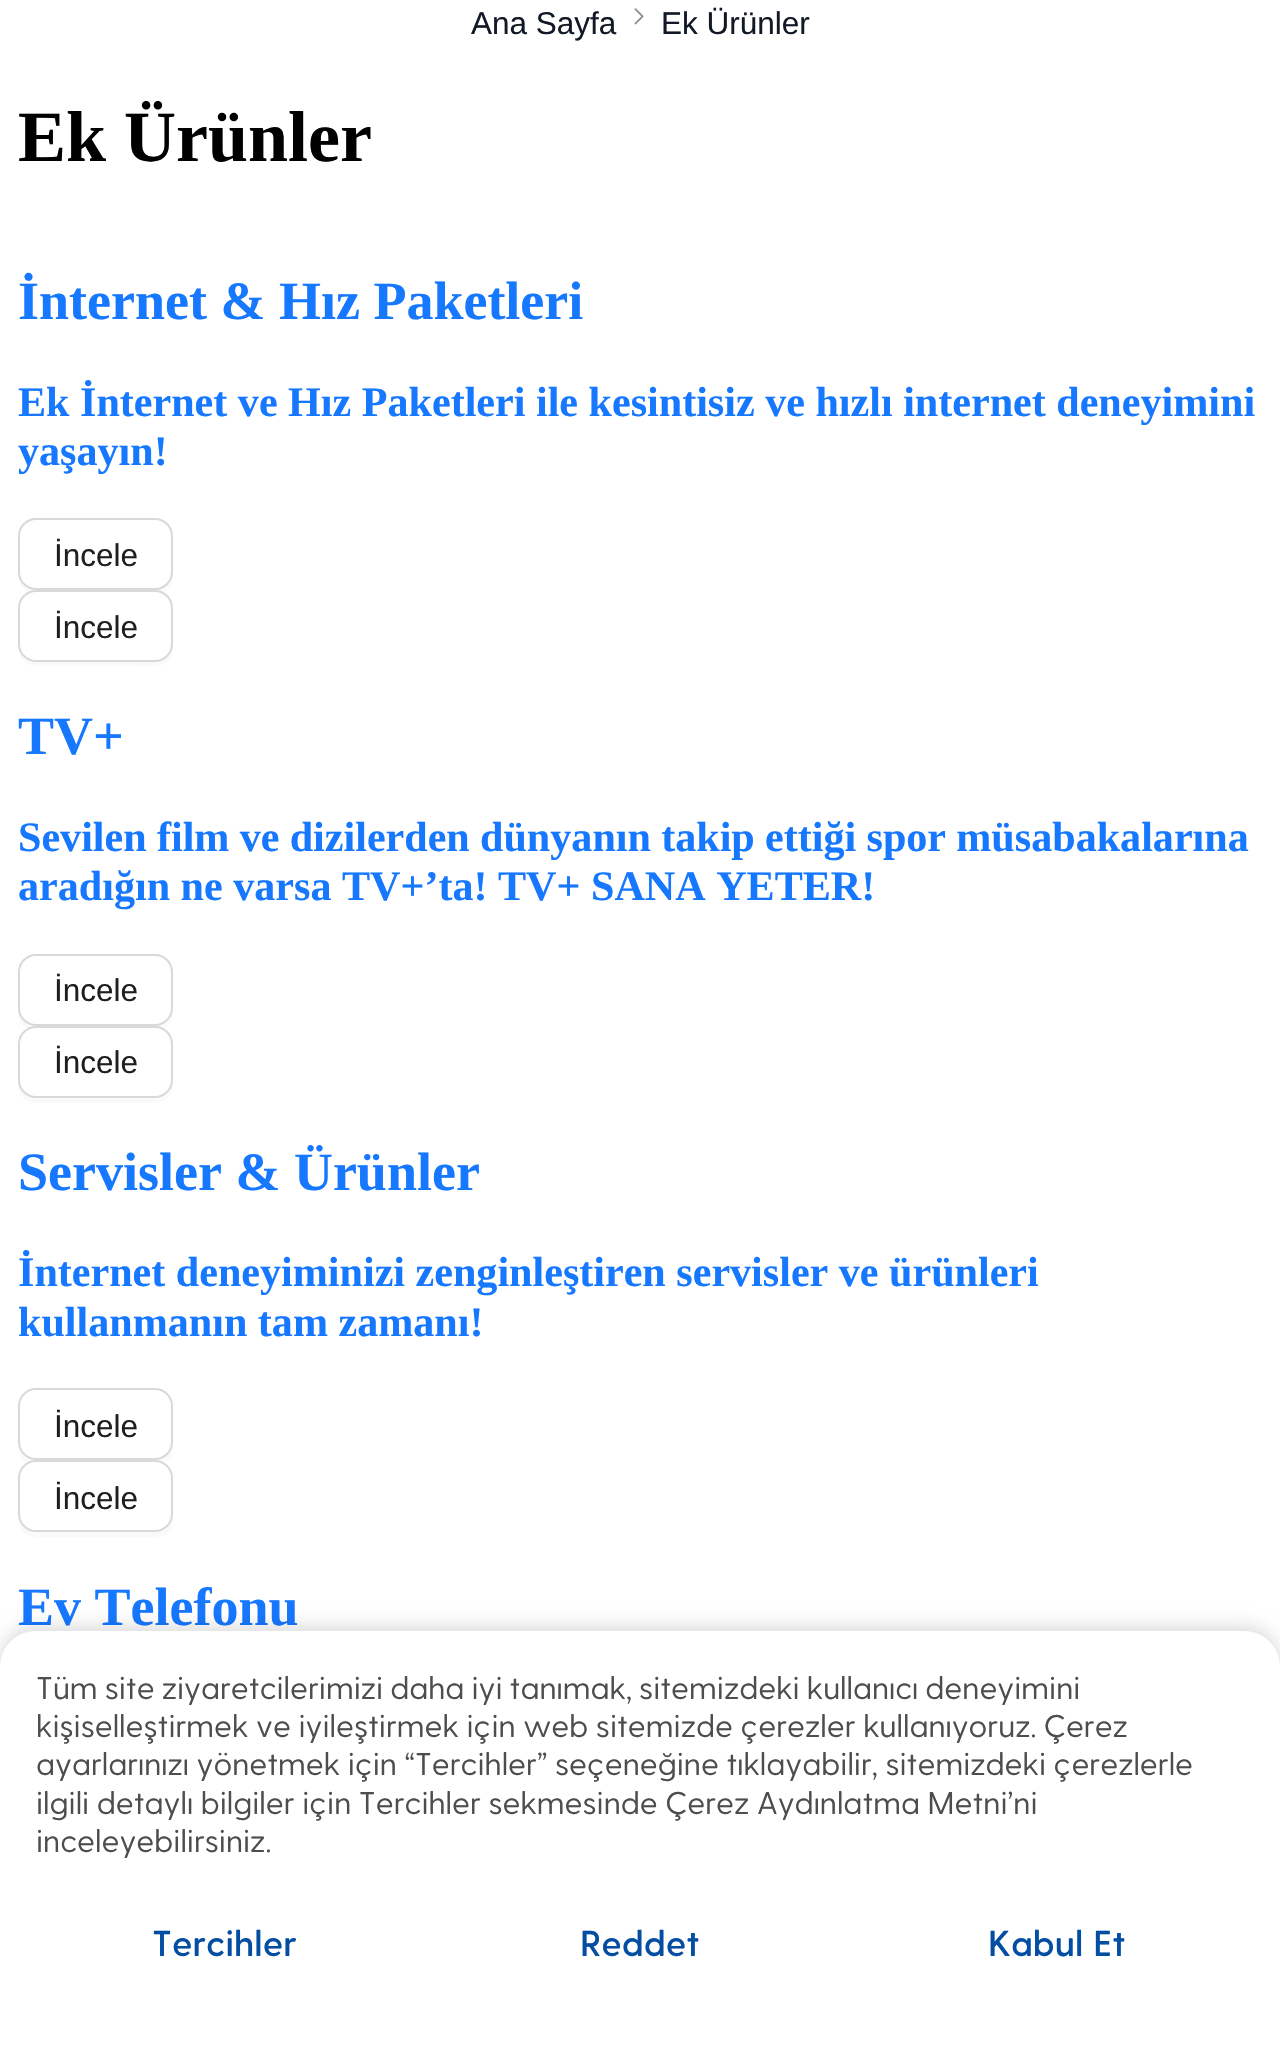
void draw(SkCanvas* c) {
SkPaint p;
p.setAntiAlias(true);
auto F=[&](const char* family, int weight, float size, bool italic = false){SkFontStyle style(weight, SkFontStyle::kNormal_Width,italic ? SkFontStyle::kItalic_Slant : SkFontStyle::kUpright_Slant);SkFont result(fontMgr->matchFamilyStyle(family, style), size);result.setSubpixel(true);return result;};
auto T=[&](const char* s, float x, float y, const SkFont& font){c->drawString(s, x, y, font, p);};
auto L=[&](const char* s, float x, float y, const SkFont& font, const SkPaint& ink, float letter, float word){std::vector<SkGlyphID> glyphs(font.countText(s, strlen(s), SkTextEncoding::kUTF8));std::vector<float> xs(glyphs.size());font.textToGlyphs(s, strlen(s), SkTextEncoding::kUTF8, glyphs);font.getXPos(glyphs, xs, x);float extra = 0;for (size_t i = 0; i < glyphs.size(); i++) {xs[i] += extra;extra += letter + word * (glyphs[i] == font.unicharToGlyph(' '));}c->drawTextBlob(SkTextBlob::MakeFromPosHGlyphs(glyphs, xs, y, font), 0, 0, ink);};
auto I=[&](const char* path, float x, float y, float w, float h){auto image = SkImages::DeferredFromEncodedData(SkData::MakeFromFileName(path));c->drawImageRect(image, SkRect::MakeXYWH(x, y, w, h), SkSamplingOptions());};
auto P=[&](const char* data, bool evenOdd = false){SkPath result = *SkParsePath::FromSVGString(data);if (evenOdd) result.setFillType(SkPathFillType::kEvenOdd);return result;};
c->clear(0xffffffff);
auto f1 = F("Liberation Sans",400,31.5);
p.setColor(0xff111927);
T("Ana Sayfa",471,34,f1);
I("1.png",634,8,10,17);
T("Ek Ürünler",661,34,f1);
auto f2 = F("Liberation Serif",700,72);
p.setColor(0xff000000);
T("Ek Ürünler",18,161,f2);
auto f3 = F("Liberation Serif",700,54);
p.setColor(0xff1677ff);
T("İnternet & Hız Paketleri",18,319,f3);
auto f4 = F("Liberation Serif",700,42.1);
T("Ek İnternet ve Hız Paketleri ile kesintisiz ve hızlı internet deneyimini",18,416,f4);
T("yaşayın!",18,465,f4);
p.setColor(0xfffafafa);
c->drawPath(P("M18 572c0 25 17 22 38 22h79c17 0 38 4 38-19c-1 8-9 15-18 15h-119c-10 0-18-9-18-18z"),p);
p.setStroke(true);
p.setStrokeWidth(2);
p.setColor(0xffd9d9d9);
c->drawRoundRect(SkRect::MakeXYWH(19,519,153,70),17,17,p);
p.setStroke(false);
p.setColor(0xff1f1f1f);
T("İncele",54,566,f1);
p.setColor(0xfffafafa);
c->drawPath(P("M18 644c0 25 17 22 38 22h79c17 0 38 4 38-19c-1 8-9 15-18 15h-119c-10 0-18-9-18-18z"),p);
p.setColor(0xffffffff);
c->drawRoundRect(SkRect::MakeXYWH(19,591,153,70),17,17,p);
p.setStroke(true);
p.setColor(0xffd9d9d9);
c->drawRoundRect(SkRect::MakeXYWH(19,591,153,70),17,17,p);
p.setStroke(false);
p.setColor(0xff1f1f1f);
T("İncele",54,638,f1);
p.setColor(0xff1677ff);
T("TV+",18,754,f3);
L("Sevilen film ve dizilerden dünyanın takip ettiği spor müsabakalarına",18,851,f4,p,0,-.25);
T("aradığın ne varsa TV+’ta!",18,900,f4);
T("TV+ SANA YETER!",498,900,f4);
p.setColor(0xfffafafa);
c->drawPath(P("M18 1008v5c0 10 8 18 18 18h119c10 0 18-8 18-18v-2c-1 9-9 15-18 15h-119c-10 0-18-8-18-18z"),p);
p.setStroke(true);
p.setColor(0xffd9d9d9);
c->drawRoundRect(SkRect::MakeXYWH(19,955,153,70),17,17,p);
p.setStroke(false);
p.setColor(0xff1f1f1f);
T("İncele",54,1001,f1);
p.setColor(0xfffafafa);
c->drawPath(P("M18 1080v5c0 10 8 18 18 18h119c10 0 18-8 18-18v-2c-1 9-9 15-18 15h-119c-10 0-18-8-18-18z"),p);
p.setColor(0xffffffff);
c->drawRoundRect(SkRect::MakeXYWH(19,1027,153,70),17,17,p);
p.setStroke(true);
p.setColor(0xffd9d9d9);
c->drawRoundRect(SkRect::MakeXYWH(19,1027,153,70),17,17,p);
p.setStroke(false);
p.setColor(0xff1f1f1f);
T("İncele",54,1073,f1);
p.setColor(0xff1677ff);
T("Servisler & Ürünler",18,1190,f3);
T("İnternet deneyiminizi zenginleştiren servisler ve ürünleri",18,1286,f4);
T("kullanmanın tam zamanı!",18,1336,f4);
p.setColor(0xfffafafa);
c->drawPath(P("M18 1442c0 26 16 23 38 23h79c17 0 38 4 38-20c-1 9-9 15-18 15h-119c-10 0-18-8-18-18z"),p);
p.setStroke(true);
p.setColor(0xffd9d9d9);
c->drawRoundRect(SkRect::MakeXYWH(19,1389,153,70),17,17,p);
p.setStroke(false);
p.setColor(0xff1f1f1f);
T("İncele",54,1437,f1);
p.setColor(0xfffafafa);
c->drawPath(P("M18 1514c0 26 16 23 38 23h79c17 0 38 4 38-20c-1 9-9 15-18 15h-119c-10 0-18-8-18-18z"),p);
p.setColor(0xffffffff);
c->drawRoundRect(SkRect::MakeXYWH(19,1461,153,70),17,17,p);
p.setStroke(true);
p.setColor(0xffd9d9d9);
c->drawRoundRect(SkRect::MakeXYWH(19,1461,153,70),17,17,p);
p.setStroke(false);
p.setColor(0xff1f1f1f);
T("İncele",54,1509,f1);
p.setColor(0xff1677ff);
T("Ev Telefonu",18,1625,f3);
p.setColor(0x26000000);
p.setMaskFilter(SkMaskFilter::MakeBlur(kNormal_SkBlurStyle, 9));
c->drawRoundRect(SkRect::MakeXYWH(0,1627,1280,416),36,36,p);
p.setMaskFilter(nullptr);
p.setColor(0xffffffff);
c->drawPath(P("M36 1631h1208c20 0 36 16 36 36v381h-1280v-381c0-20 16-36 36-36z"),p);
auto f5 = F("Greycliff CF",400,31.5);
p.setColor(0xff4d4d4d);
L("Tüm site ziyaretcilerimizi daha iyi tanımak, sitemizdeki kullanıcı deneyimini",36,1699,f5,p,0,-1.75);
L("kişiselleştirmek ve iyileştirmek için web sitemizde çerezler kullanıyoruz. Çerez",36,1737,f5,p,0,-1.25);
L("ayarlarınızı yönetmek için “Tercihler” seçeneğine tıklayabilir, sitemizdeki çerezlerle",36,1775,f5,p,0,-1.25);
L("ilgili detaylı bilgiler için Tercihler sekmesinde Çerez Aydınlatma Metni’ni",36,1814,f5,p,0,-1.25);
T("inceleyebilirsiniz.",36,1852,f5);
auto f6 = F("Greycliff CF",600,36);
p.setColor(0xff034ea2);
T("Tercihler",152,1956,f6);
T("Reddet",580,1956,f6);
T("Kabul Et",988,1956,f6);
}
